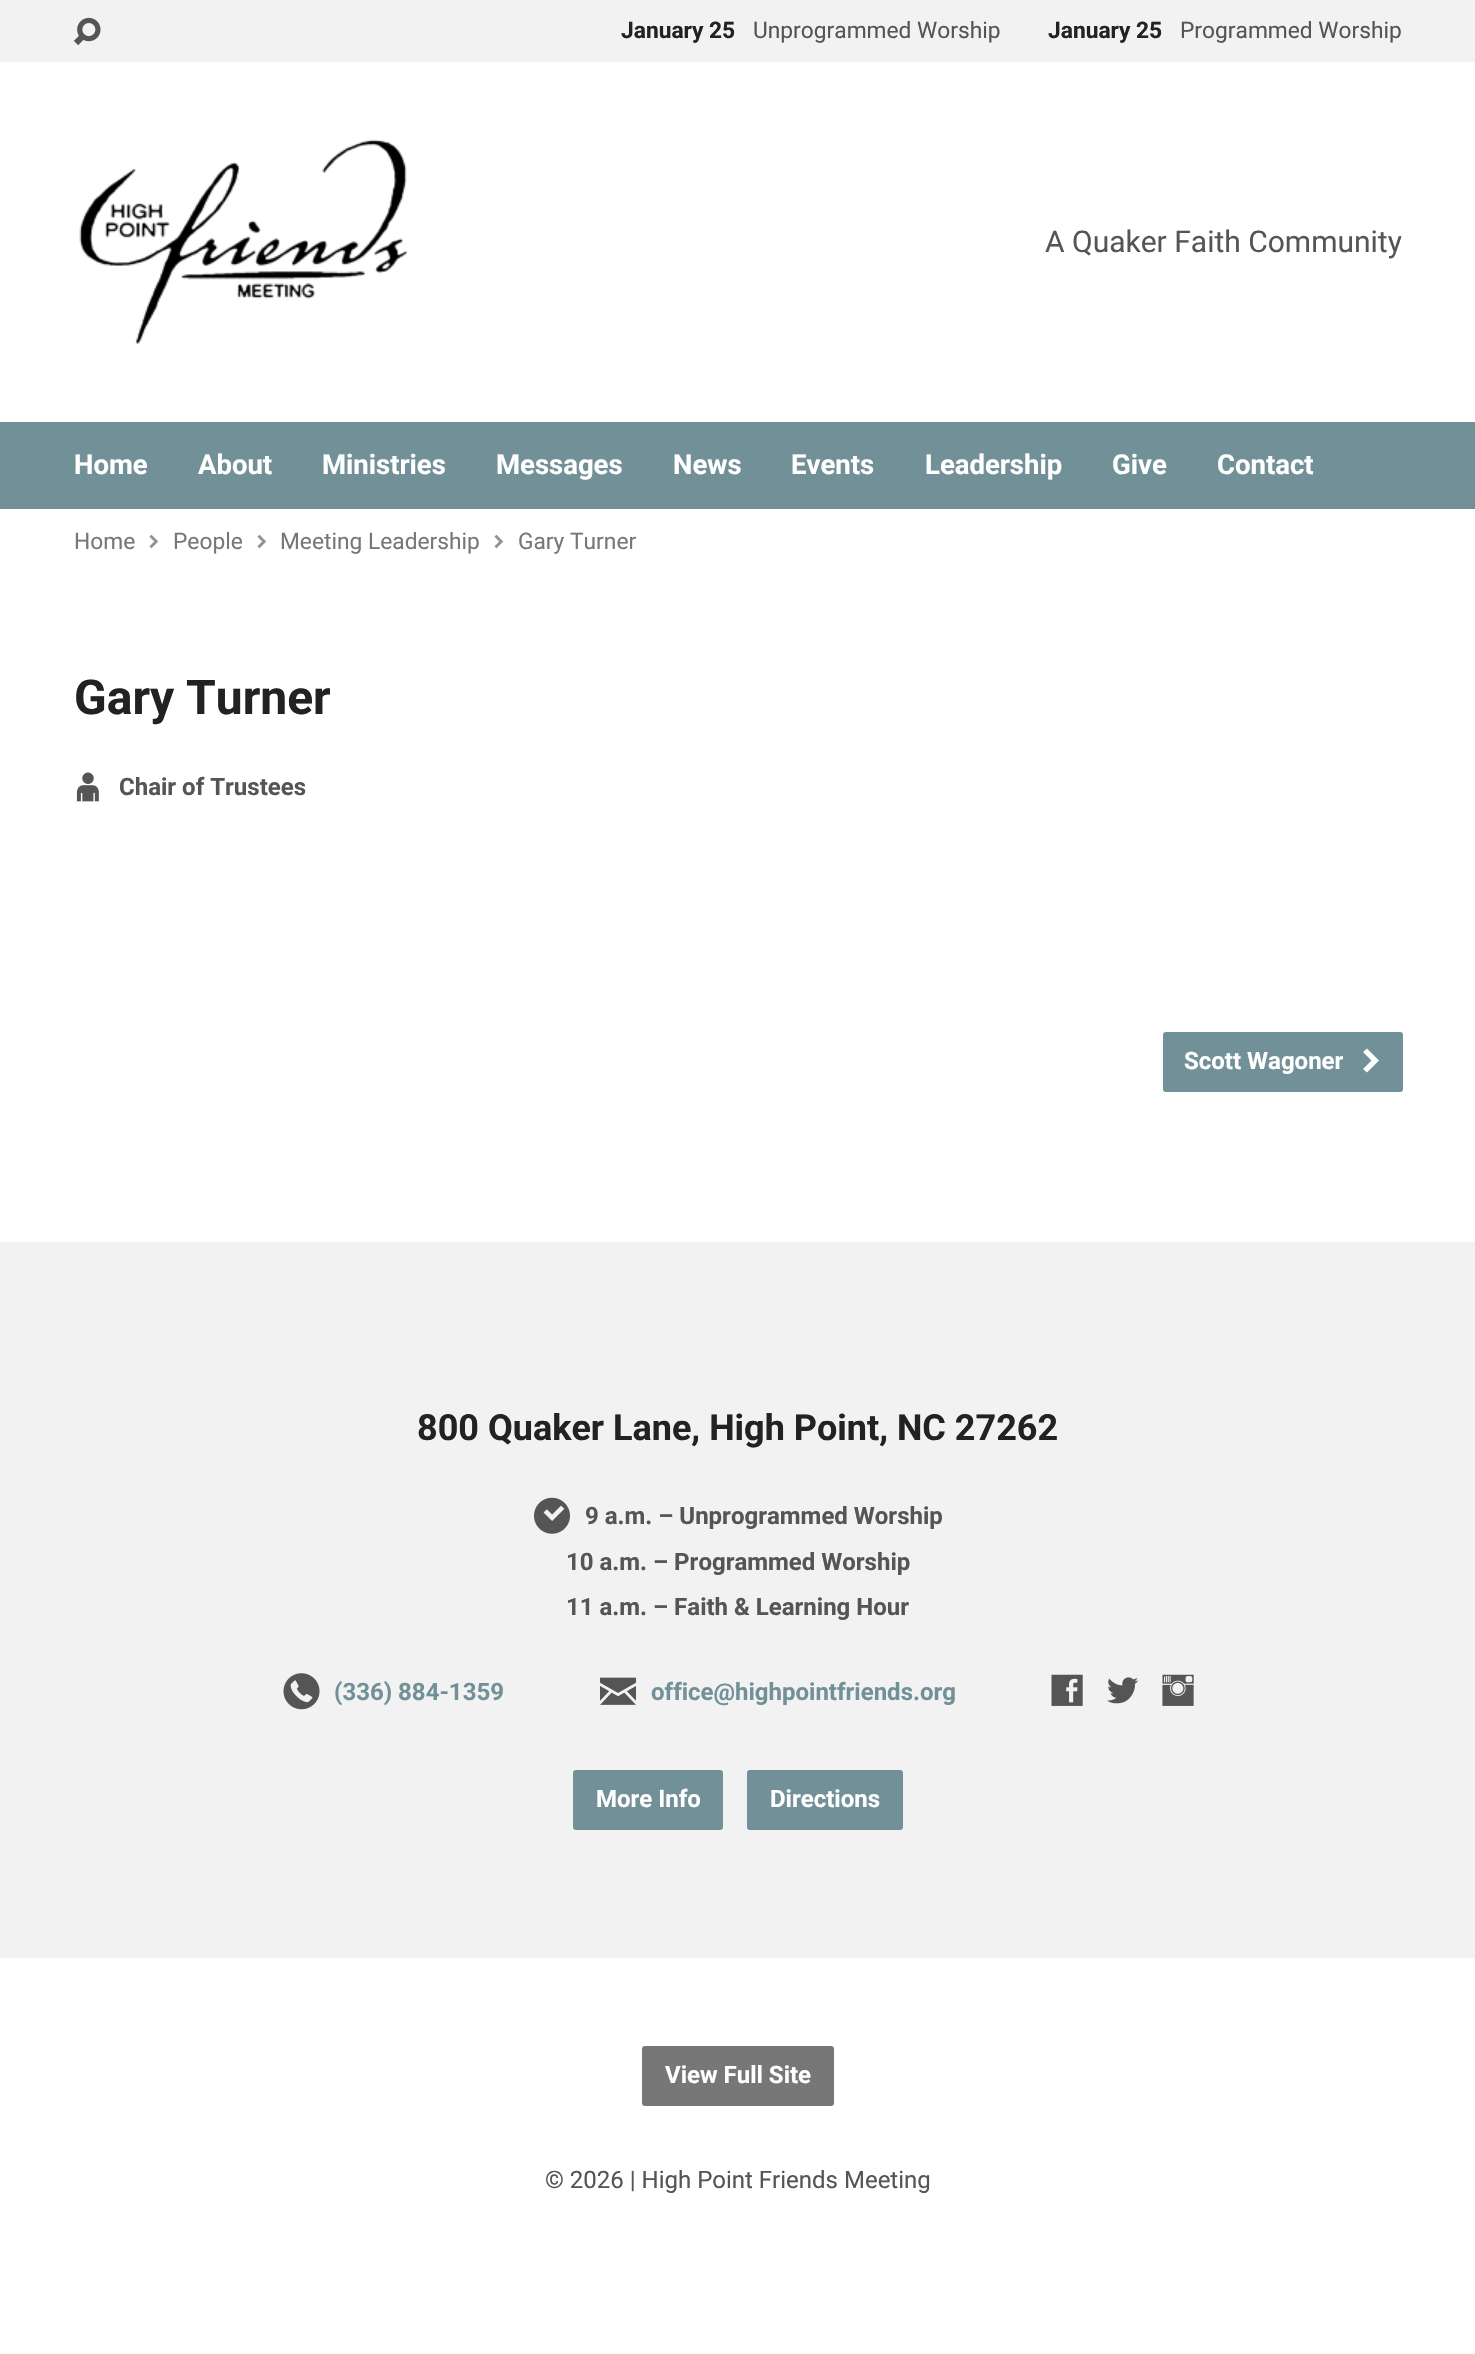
void draw(SkCanvas* c) {
SkPaint p;
p.setAntiAlias(true);
auto F=[&](const char* family, int weight, float size, bool italic = false){SkFontStyle style(weight, SkFontStyle::kNormal_Width,italic ? SkFontStyle::kItalic_Slant : SkFontStyle::kUpright_Slant);SkFont result(fontMgr->matchFamilyStyle(family, style), size);result.setSubpixel(true);return result;};
auto T=[&](const char* s, float x, float y, const SkFont& font){c->drawString(s, x, y, font, p);};
auto R=[&](float x, float y, float w, float h){c->drawRect(SkRect::MakeXYWH(x, y, w, h), p);};
auto Q=[&](float x, float y, float w, float h, float radius){c->drawRoundRect(SkRect::MakeXYWH(x, y, w, h), radius, radius, p);};
auto I=[&](const char* path, float x, float y, float w, float h){auto image = SkImages::DeferredFromEncodedData(SkData::MakeFromFileName(path));c->drawImageRect(image, SkRect::MakeXYWH(x, y, w, h), SkSamplingOptions());};
auto P=[&](const char* data, bool evenOdd = false){SkPath result = *SkParsePath::FromSVGString(data);if (evenOdd) result.setFillType(SkPathFillType::kEvenOdd);return result;};
c->clear(0xffffffff);
p.setColor(0xfff2f2f2);
R(0,0,1475,62);
I("1.png",73,17,28,29);
auto f1 = F("Roboto",700,22.75);
p.setColor(0xff222222);
T("January 25",621,38,f1);
auto f2 = F("Roboto",400,22.75);
p.setColor(0xff555555);
T("Unprogrammed Worship",753,38,f2);
p.setColor(0xff222222);
T("January 25",1048,38,f1);
p.setColor(0xff555555);
T("Programmed Worship",1180,38,f2);
I("2.png",79,139,329,205);
auto f3 = F("Roboto",400,30);
T("A Quaker Faith Community",1045,252,f3);
p.setColor(0xff719097);
R(0,422,1475,87);
auto f4 = F("Roboto",700,27.5);
p.setColor(0xffffffff);
T("Home",74,474,f4);
T("About",198,474,f4);
T("Ministries",322,474,f4);
T("Messages",496,474,f4);
T("News",673,474,f4);
T("Events",791,474,f4);
T("Leadership",925,474,f4);
T("Give",1112,474,f4);
T("Contact",1217,474,f4);
p.setColor(0xff777777);
T("Home",74,549,f2);
I("3.png",149,534,10,15);
T("People",173,549,f2);
I("3.png",257,534,10,15);
T("Meeting Leadership",280,549,f2);
I("3.png",494,534,10,15);
T("Gary Turner",518,549,f2);
auto f5 = F("Roboto",700,48);
p.setColor(0xff222222);
T("Gary Turner",74,714,f5);
I("4.png",76,772,23,30);
auto f6 = F("Roboto",700,24);
p.setColor(0xff555555);
T("Chair of Trustees",119,795,f6);
p.setColor(0xff719097);
Q(1163,1032,240,60,3);
p.setColor(0xffffffff);
T("Scott Wagoner",1184,1069,f6);
c->drawPath(P("M1379 1060.5l-12-12l-4 3.5l8.5 8.5l-8.5 8.5l4 3.5z"),p);
p.setColor(0xfff2f2f2);
R(0,1242,1475,716);
auto f7 = F("Roboto",700,36);
p.setColor(0xff222222);
T("800 Quaker Lane, High Point, NC 27262",417,1440,f7);
I("5.png",534,1497,36,37);
p.setColor(0xff555555);
T("9 a.m. – Unprogrammed Worship",585,1524,f6);
T("10 a.m. – Programmed Worship",566,1570,f6);
T("11 a.m. – Faith & Learning Hour",566,1615,f6);
I("6.png",283,1673,37,37);
p.setColor(0xff719097);
T("(336) 884-1359",334,1700,f6);
I("7.png",600,1677,36,28);
T("office@highpointfriends.org",651,1700,f6);
I("8.png",1051,1674,32,32);
I("9.png",1107,1677,32,27);
I("10.png",1162,1674,32,32);
Q(573,1770,150,60,3);
p.setColor(0xffffffff);
T("More Info",596,1807,f6);
p.setColor(0xff719097);
Q(747,1770,156,60,3);
p.setColor(0xffffffff);
T("Directions",770,1807,f6);
p.setColor(0xff777777);
Q(642,2046,192,60,3);
p.setColor(0xffffffff);
T("View Full Site",665,2083,f6);
auto f8 = F("Roboto",400,24);
p.setColor(0xff555555);
T("© 2026 | High Point Friends Meeting",545,2188,f8);
}
